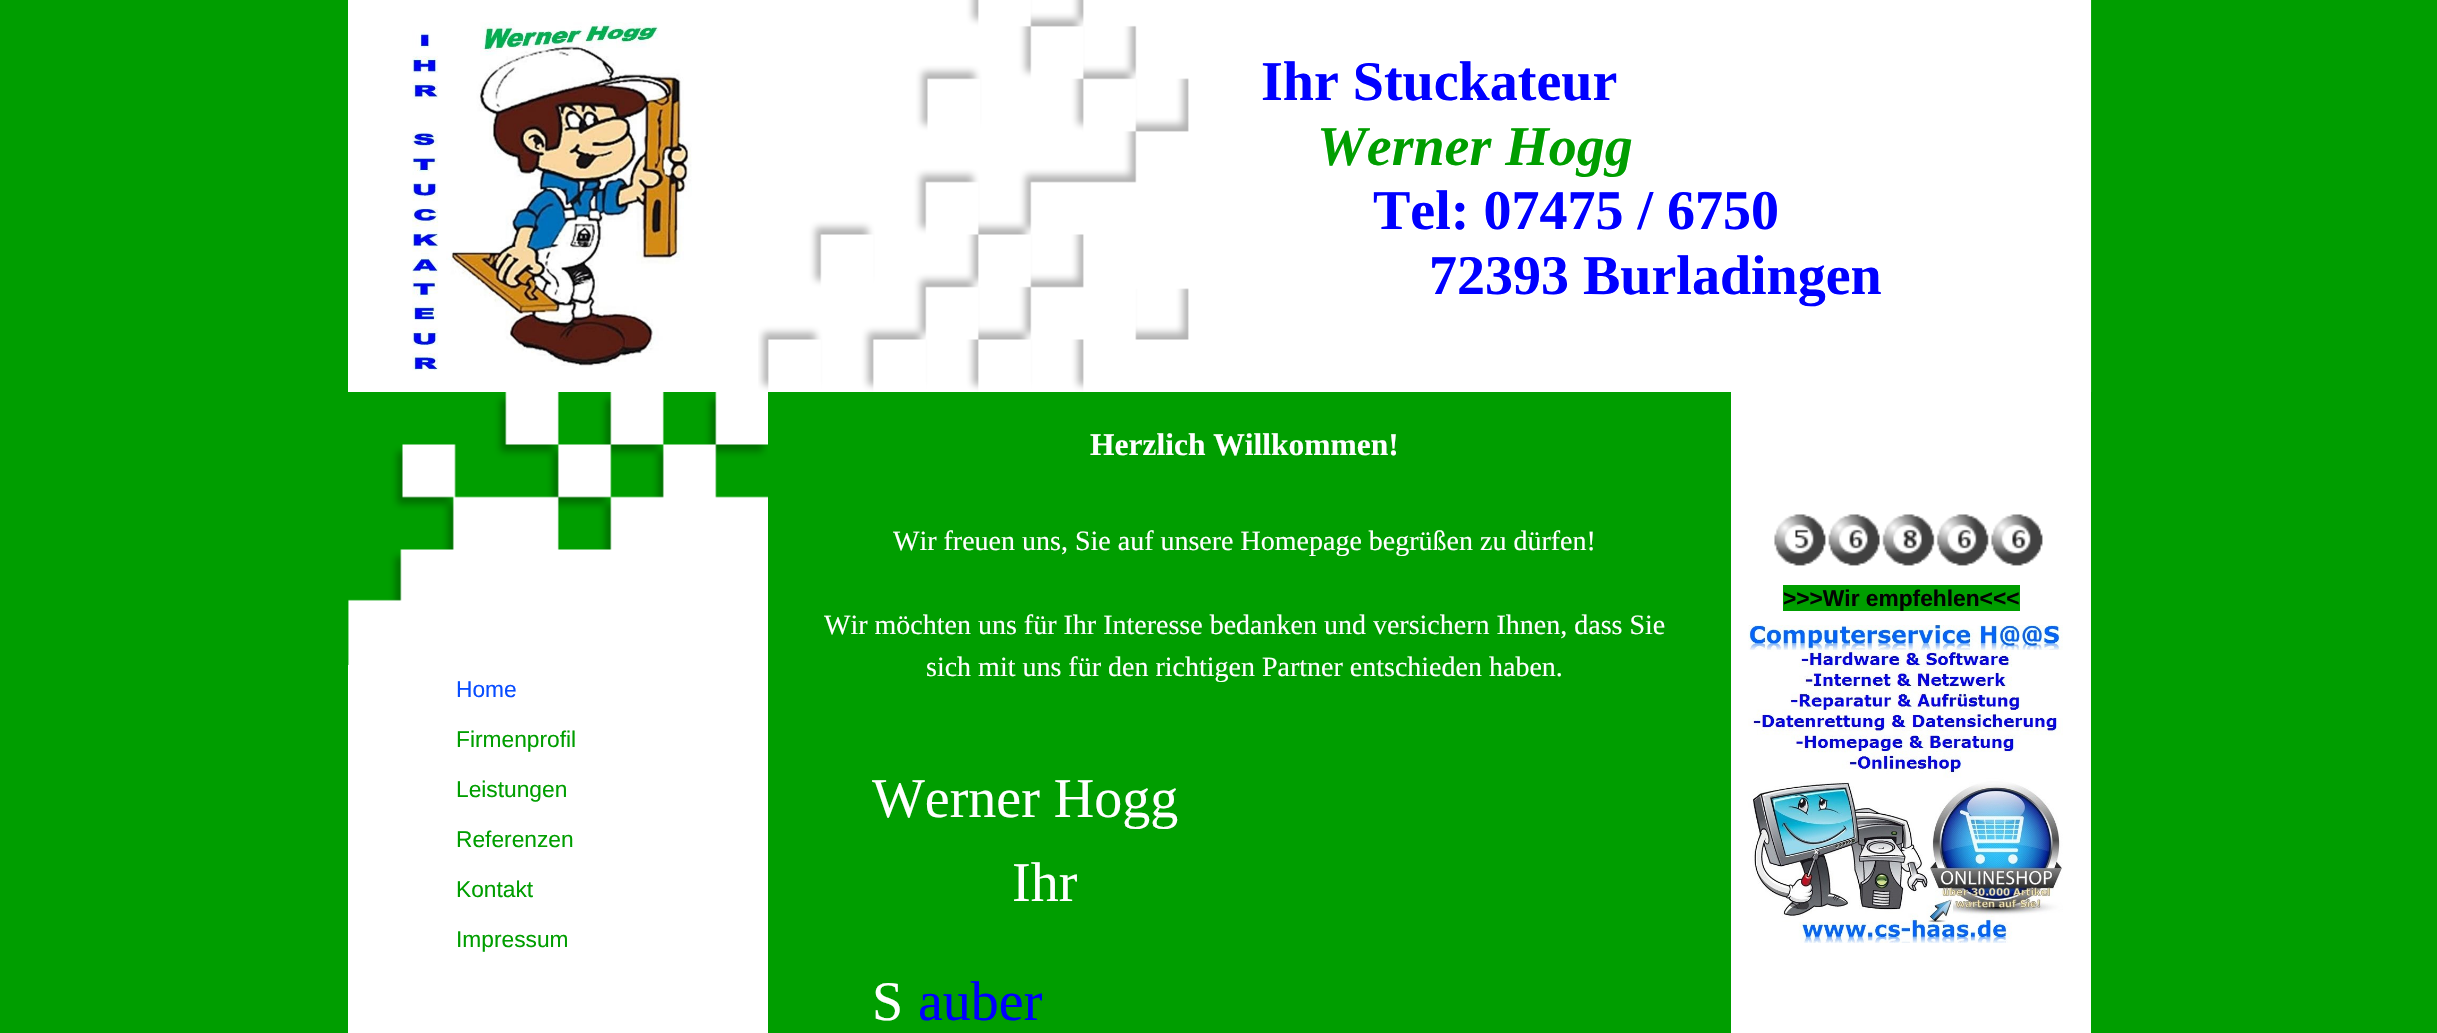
void draw(SkCanvas* c) {
SkPaint p;
p.setAntiAlias(true);
auto F=[&](const char* family, int weight, float size, bool italic = false){SkFontStyle style(weight, SkFontStyle::kNormal_Width,italic ? SkFontStyle::kItalic_Slant : SkFontStyle::kUpright_Slant);SkFont result(fontMgr->matchFamilyStyle(family, style), size);result.setSubpixel(true);return result;};
auto T=[&](const char* s, float x, float y, const SkFont& font){c->drawString(s, x, y, font, p);};
auto R=[&](float x, float y, float w, float h){c->drawRect(SkRect::MakeXYWH(x, y, w, h), p);};
auto I=[&](const char* path, float x, float y, float w, float h){auto image = SkImages::DeferredFromEncodedData(SkData::MakeFromFileName(path));c->drawImageRect(image, SkRect::MakeXYWH(x, y, w, h), SkSamplingOptions());};
c->clear(0xff009e00);
p.setColor(0xffffffff);
R(348,0,841,392);
I("1.png",412,22,280,349);
I("2.png",758,0,1334,392);
auto f1 = F("Liberation Serif",700,56);
p.setColor(0xff0000ff);
T("Ihr Stuckateur",1261,100,f1);
auto f2 = F("Liberation Serif",700,56,true);
p.setColor(0xff009e00);
T("Werner Hogg",1317,165,f2);
p.setColor(0xff0000ff);
T("Tel: 07475 / 6750",1373,229,f1);
T("72393 Burladingen",1429,294,f1);
auto f3 = F("Liberation Serif",700,31.5);
p.setColor(0xffffffff);
T("Herzlich Willkommen!",1090,455,f3);
auto f4 = F("Liberation Serif",400,28);
T("Wir freuen uns, Sie auf unsere Homepage begrüßen zu dürfen!",893,550,f4);
T("Wir möchten uns für Ihr Interesse bedanken und versichern Ihnen, dass Sie",824,634,f4);
T("sich mit uns für den richtigen Partner entschieden haben.",926,676,f4);
auto f5 = F("Liberation Serif",400,56);
T("Werner Hogg",872,817,f5);
T("Ihr",1012,901,f5);
T("S",872,1020,f5);
p.setColor(0xff0000ff);
T("auber",918,1020,f5);
p.setColor(0xffffffff);
R(1731,392,360,641);
I("3.png",1774,514,269,52);
p.setColor(0xff009e00);
R(1783,585,237,26);
auto f6 = F("Liberation Sans",700,22.75);
p.setColor(0xff020202);
T(">>>Wir empfehlen<<<",1783,606,f6);
I("4.png",1748,625,315,318);
p.setColor(0xffffffff);
R(348,665,420,368);
I("5.png",348,392,420,273);
auto f7 = F("Liberation Sans",400,22.75);
p.setColor(0xff084dff);
T("Home",456,697,f7);
p.setColor(0xff009e00);
T("Firmenprofil",456,747,f7);
T("Leistungen",456,797,f7);
T("Referenzen",456,847,f7);
T("Kontakt",456,897,f7);
T("Impressum",456,947,f7);
}
